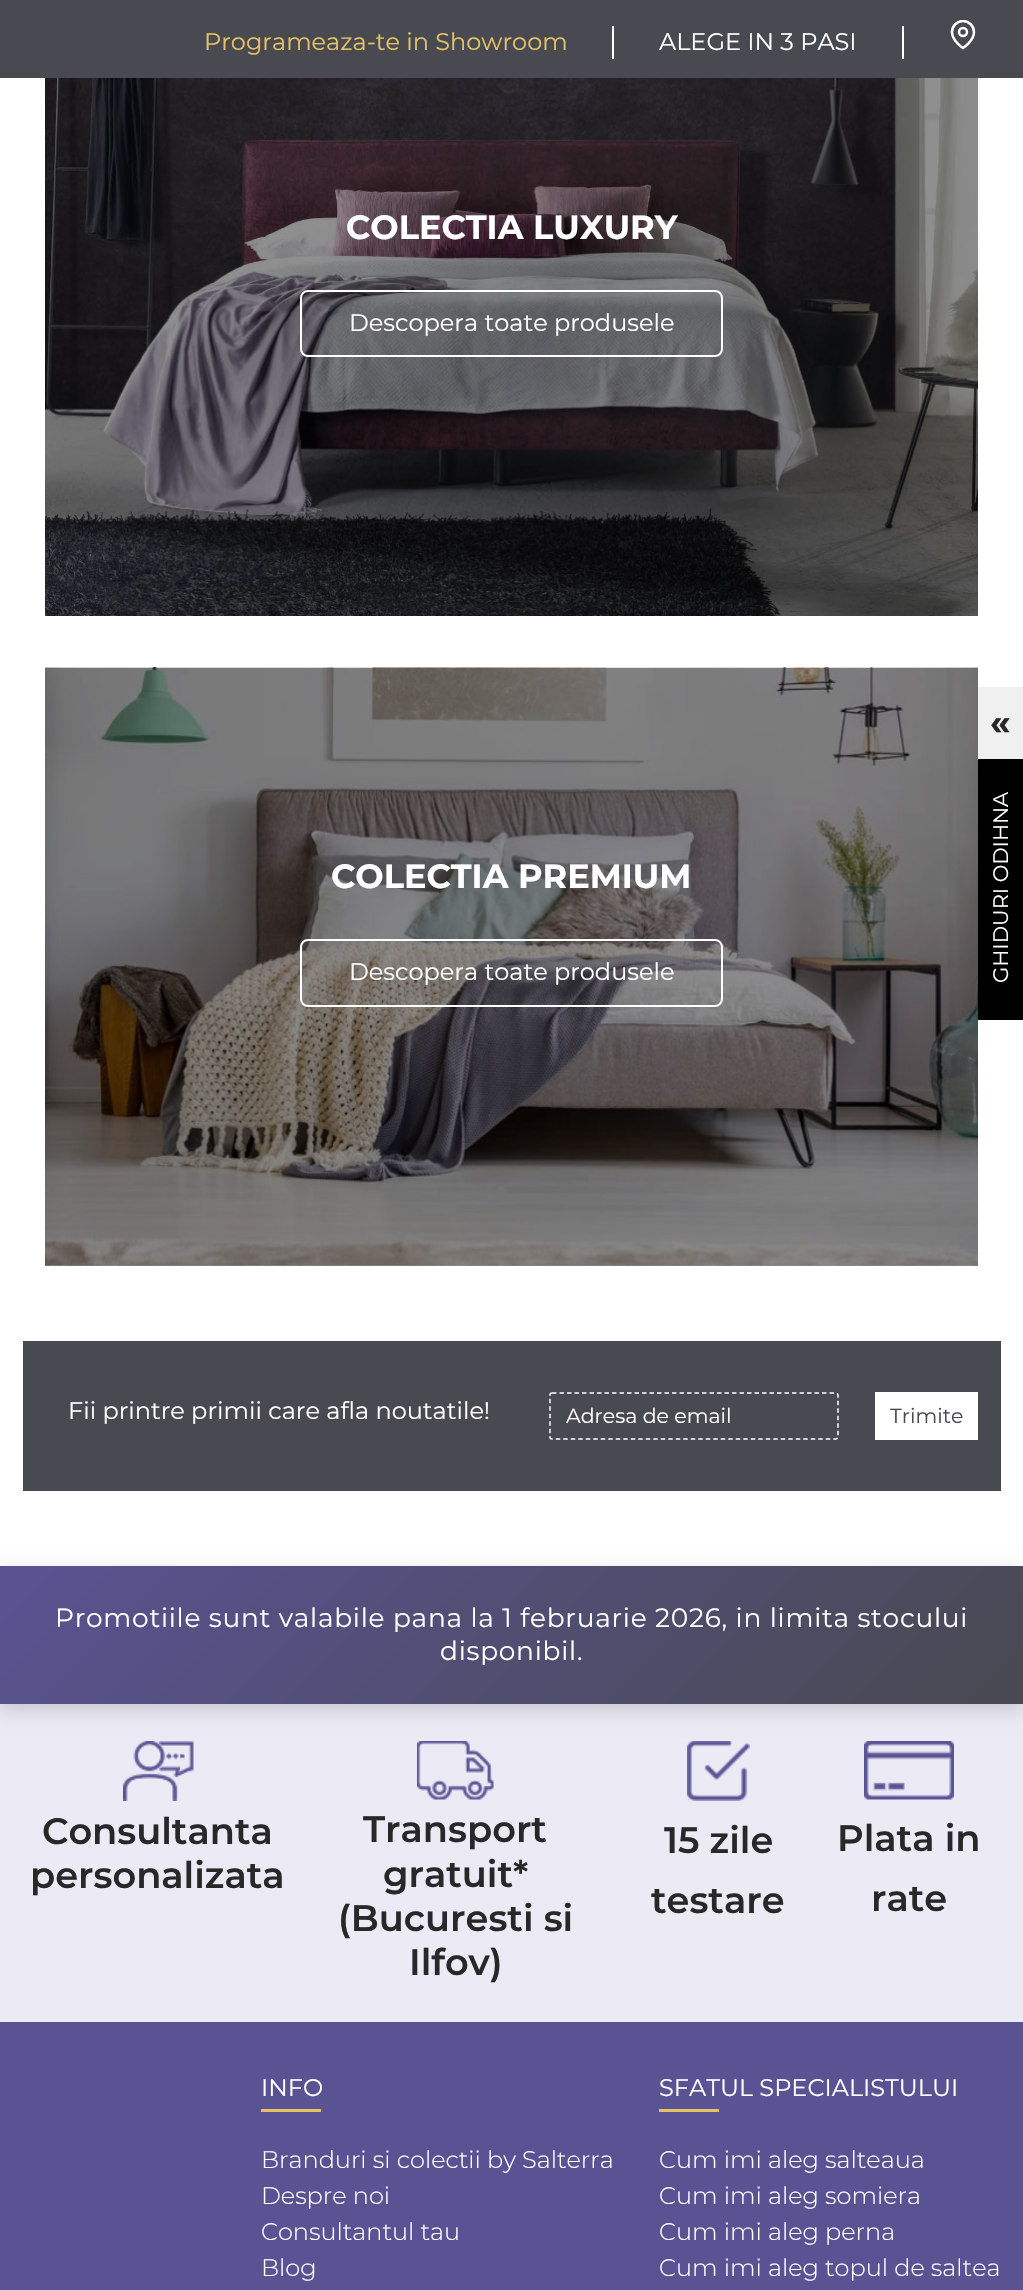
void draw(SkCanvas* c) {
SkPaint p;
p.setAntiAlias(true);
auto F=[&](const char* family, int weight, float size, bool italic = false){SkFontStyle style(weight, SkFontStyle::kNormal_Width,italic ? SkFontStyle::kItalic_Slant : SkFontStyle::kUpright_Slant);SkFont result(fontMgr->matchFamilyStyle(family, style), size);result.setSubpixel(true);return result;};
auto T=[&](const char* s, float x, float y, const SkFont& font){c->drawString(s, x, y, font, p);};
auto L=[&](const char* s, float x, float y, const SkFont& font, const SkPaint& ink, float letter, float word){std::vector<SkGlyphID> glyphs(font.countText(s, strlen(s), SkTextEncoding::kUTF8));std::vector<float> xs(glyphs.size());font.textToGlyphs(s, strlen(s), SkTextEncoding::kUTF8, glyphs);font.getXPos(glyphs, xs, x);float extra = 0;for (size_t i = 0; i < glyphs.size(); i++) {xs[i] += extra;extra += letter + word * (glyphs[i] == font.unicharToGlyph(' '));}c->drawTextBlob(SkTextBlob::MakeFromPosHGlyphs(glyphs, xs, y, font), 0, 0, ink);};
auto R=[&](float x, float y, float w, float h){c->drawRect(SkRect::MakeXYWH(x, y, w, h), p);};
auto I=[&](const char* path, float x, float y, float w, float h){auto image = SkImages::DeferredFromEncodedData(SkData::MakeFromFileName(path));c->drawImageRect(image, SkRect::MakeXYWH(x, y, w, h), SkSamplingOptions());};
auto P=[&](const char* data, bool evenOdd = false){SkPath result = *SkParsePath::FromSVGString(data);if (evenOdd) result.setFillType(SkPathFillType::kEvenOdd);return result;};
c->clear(0xffffffff);
p.setColor(0xff8f8f8f);
R(45,1265,933,1);
p.setColor(0xff484951);
R(0,0,1023,78);
p.setColor(0xffffffff);
R(612,26,2,33);
auto f1 = F("Montserrat",400,24);
p.setColor(0xffe4c265);
T("Programeaza-te in Showroom",204,50,f1);
p.setColor(0xffffffff);
R(902,26,2,33);
T("ALEGE IN 3 PASI",659,50,f1);
c->save();
c->clipRect(SkRect::MakeXYWH(948,20,30,30));
p.setStroke(true);
p.setStrokeWidth(2.5);
p.setStrokeCap(SkPaint::kRound_Cap);
p.setStrokeJoin(SkPaint::kRound_Join);
c->drawPath(P("M974 32c0 9-11 16-11 16c0 0-11-7-11-16c0-6 5-11 11-11c6 0 11 5 11 11z"),p);
c->restore();
p.setStrokeCap(SkPaint::kButt_Cap);
p.setStrokeJoin(SkPaint::kMiter_Join);
c->drawCircle(963,32,4,p);
I("1.png",45,78,933,538);
auto f2 = F("Montserrat",700,33.6);
p.setStroke(false);
T("COLECTIA LUXURY",346,239,f2);
p.setStroke(true);
p.setStrokeWidth(2);
c->drawRoundRect(SkRect::MakeXYWH(301,291,421,65),7,7,p);
p.setStroke(false);
T("Descopera toate produsele",349,331,f1);
I("2.png",45,667,933,599);
T("COLECTIA PREMIUM",331,888,f2);
p.setStroke(true);
c->drawRoundRect(SkRect::MakeXYWH(301,940,421,66),7,7,p);
p.setStroke(false);
T("Descopera toate produsele",349,980,f1);
p.setColor(0xff000000);
R(978,759,45,261);
p.setColor(0xfff0f0f0);
R(978,687,45,72);
auto f3 = F("Montserrat",700,36);
p.setColor(0xff282828);
T("«",990,735,f3);
auto f4 = F("Montserrat",400,21);
p.setColor(0xffffffff);
c->save();
c->rotate(-90,1008,983);
T("GHIDURI ODIHNA",1008,983,f4);
c->restore();
p.setColor(0xff484951);
R(23,1341,978,150);
p.setColor(0xffffffff);
T("Fii printre primii care afla noutatile!",68,1419,f1);
p.setStroke(true);
p.setStrokeWidth(1.5);
p.setPathEffect(SkDashPathEffect::Make({{4.5f,3}}, 0));
c->drawPath(P("M552 1393h283.5c1 0 2.5 1 2.5 2v42c0 1-1.5 2-2.5 2h-283.5c-1 0-2-1-2-2v-42c0-1 1-2 2-2z"),p);
p.setPathEffect(nullptr);
auto f5 = F("Montserrat",400,20.5);
p.setStroke(false);
T("Adresa de email",566,1423,f5);
R(875,1392,103,48);
p.setColor(0xff484951);
T("Trimite",890,1423,f5);
p.setColor(0xffebeaf5);
R(0,1704,1023,318);
p.setColor(0x26000000);
p.setMaskFilter(SkMaskFilter::MakeBlur(kNormal_SkBlurStyle, 9));
c->drawRect(SkRect::MakeXYWH(0,1572,1023,138),p);
p.setMaskFilter(nullptr);
{
const SkColor colors[] = {0xff5a5393,0xff484951};
const float stops[] = {0,1};
const SkPoint ends[] = {{221,1345}, {802,1925}};
p.setShader(SkGradientShader::MakeLinear(ends, colors, stops, 2, SkTileMode::kClamp));
p.setAlpha(255);
}
R(0,1566,1023,138);
auto f6 = F("Montserrat",400,26.4);
p.setShader(nullptr);
p.setColor(0xffffffff);
L("Promotiile sunt valabile pana la 1 februarie 2026, in limita stocului",55,1627,f6,p,.75,0);
L("disponibil.",440,1660,f6,p,.75,0);
I("3.png",123,1741,71,60);
auto f7 = F("Montserrat",600,36.75);
p.setColor(0xff282828);
T("Consultanta",42,1844,f7);
T("personalizata",30,1888,f7);
I("4.png",417,1741,77,59);
T("Transport",363,1842,f7);
T("gratuit*",383,1887,f7);
T("(Bucuresti si",338,1931,f7);
T("Ilfov)",409,1975,f7);
I("5.png",687,1741,63,60);
T("15 zile",664,1853,f7);
T("testare",651,1913,f7);
I("6.png",864,1741,90,59);
T("Plata in",837,1851,f7);
T("rate",871,1911,f7);
p.setColor(0xff5a5393);
R(0,2022,1023,268);
p.setColor(0xffffffff);
T("INFO",261,2096,f1);
p.setColor(0xffe4c265);
R(261,2109,60,3);
auto f8 = F("Montserrat",300,24);
p.setColor(0xffffffff);
T("Branduri si colectii by Salterra",261,2168,f8);
T("Despre noi",261,2204,f8);
T("Consultantul tau",261,2240,f8);
T("Blog",261,2276,f8);
T("SFATUL SPECIALISTULUI",659,2096,f1);
p.setColor(0xffe4c265);
R(659,2109,60,3);
p.setColor(0xffffffff);
T("Cum imi aleg salteaua",659,2168,f8);
T("Cum imi aleg somiera",659,2204,f8);
T("Cum imi aleg perna",659,2240,f8);
T("Cum imi aleg topul de saltea",659,2276,f8);
}
